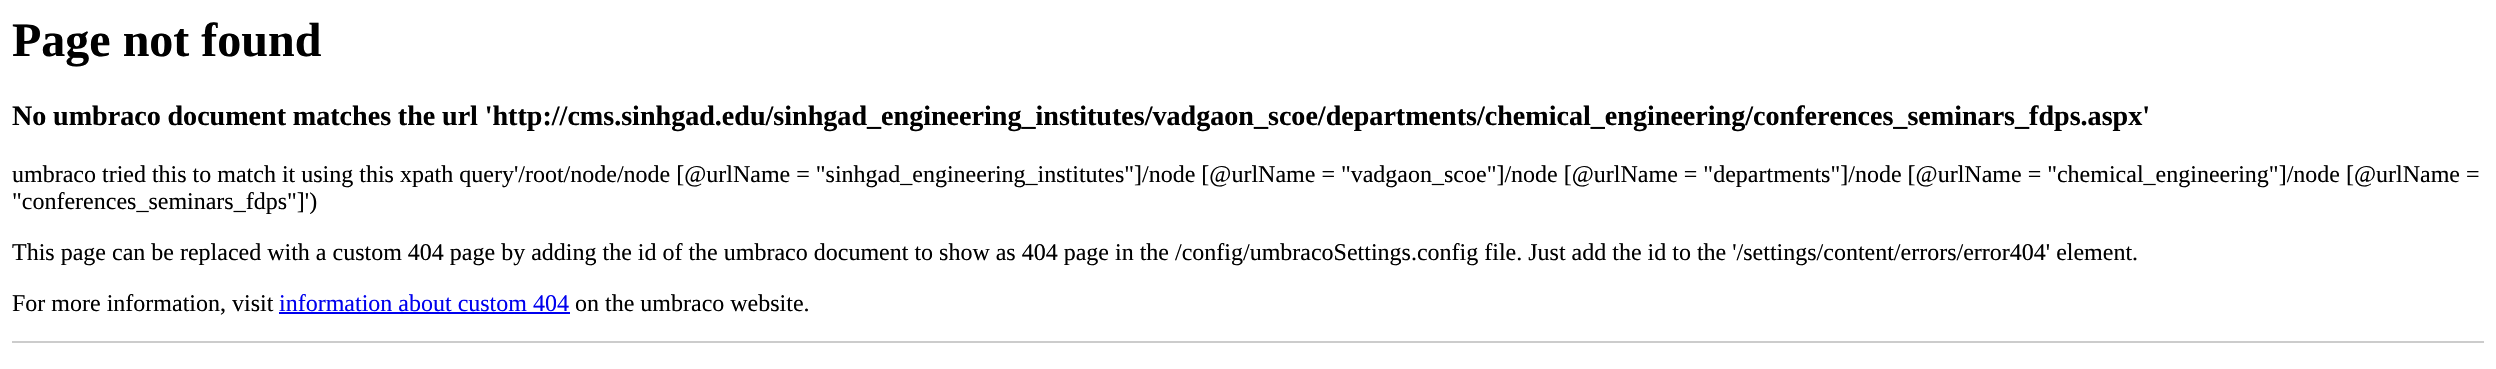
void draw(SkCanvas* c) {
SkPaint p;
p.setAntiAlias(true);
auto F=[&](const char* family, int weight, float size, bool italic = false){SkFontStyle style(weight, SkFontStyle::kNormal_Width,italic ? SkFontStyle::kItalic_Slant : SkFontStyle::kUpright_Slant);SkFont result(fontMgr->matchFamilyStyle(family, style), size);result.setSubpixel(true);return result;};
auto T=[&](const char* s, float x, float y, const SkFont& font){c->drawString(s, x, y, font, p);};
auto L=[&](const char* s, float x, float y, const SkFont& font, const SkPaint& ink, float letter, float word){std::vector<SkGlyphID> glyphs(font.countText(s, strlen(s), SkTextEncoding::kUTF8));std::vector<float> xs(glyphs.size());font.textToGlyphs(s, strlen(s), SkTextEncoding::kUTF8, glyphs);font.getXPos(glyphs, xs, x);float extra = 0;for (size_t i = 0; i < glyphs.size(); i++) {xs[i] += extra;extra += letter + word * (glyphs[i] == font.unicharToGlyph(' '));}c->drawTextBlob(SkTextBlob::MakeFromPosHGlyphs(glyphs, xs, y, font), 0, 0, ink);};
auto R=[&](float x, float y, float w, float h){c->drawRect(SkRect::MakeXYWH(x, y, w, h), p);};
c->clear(0xffffffff);
auto f1 = F("Liberation Serif",700,48);
p.setColor(0xff000000);
T("Page not found",12,56,f1);
auto f2 = F("Liberation Serif",700,28.08);
L("No umbraco document matches the url 'http://cms.sinhgad.edu/sinhgad_engineering_institutes/vadgaon_scoe/departments/chemical_engineering/conferences_seminars_fdps.aspx'",12,125,f2,p,0,-.25);
auto f3 = F("Liberation Serif",400,24);
T("umbraco tried this to match it using this xpath query'/root/node/node [@urlName = \"sinhgad_engineering_institutes\"]/node [@urlName = \"vadgaon_scoe\"]/node [@urlName = \"departments\"]/node [@urlName = \"chemical_engineering\"]/node [@urlName =",12,182,f3);
T("\"conferences_seminars_fdps\"]')",12,209,f3);
T("This page can be replaced with a custom 404 page by adding the id of the umbraco document to show as 404 page in the /config/umbracoSettings.config file. Just add the id to the '/settings/content/errors/error404' element.",12,260,f3);
T("For more information, visit",12,311,f3);
p.setColor(0xff0000ee);
T("information about custom 404",279,311,f3);
R(279,312,291,2);
p.setColor(0xff000000);
T("on the umbraco website.",575,311,f3);
p.setColor(0xffcccccc);
R(12,341,2472,2);
}
